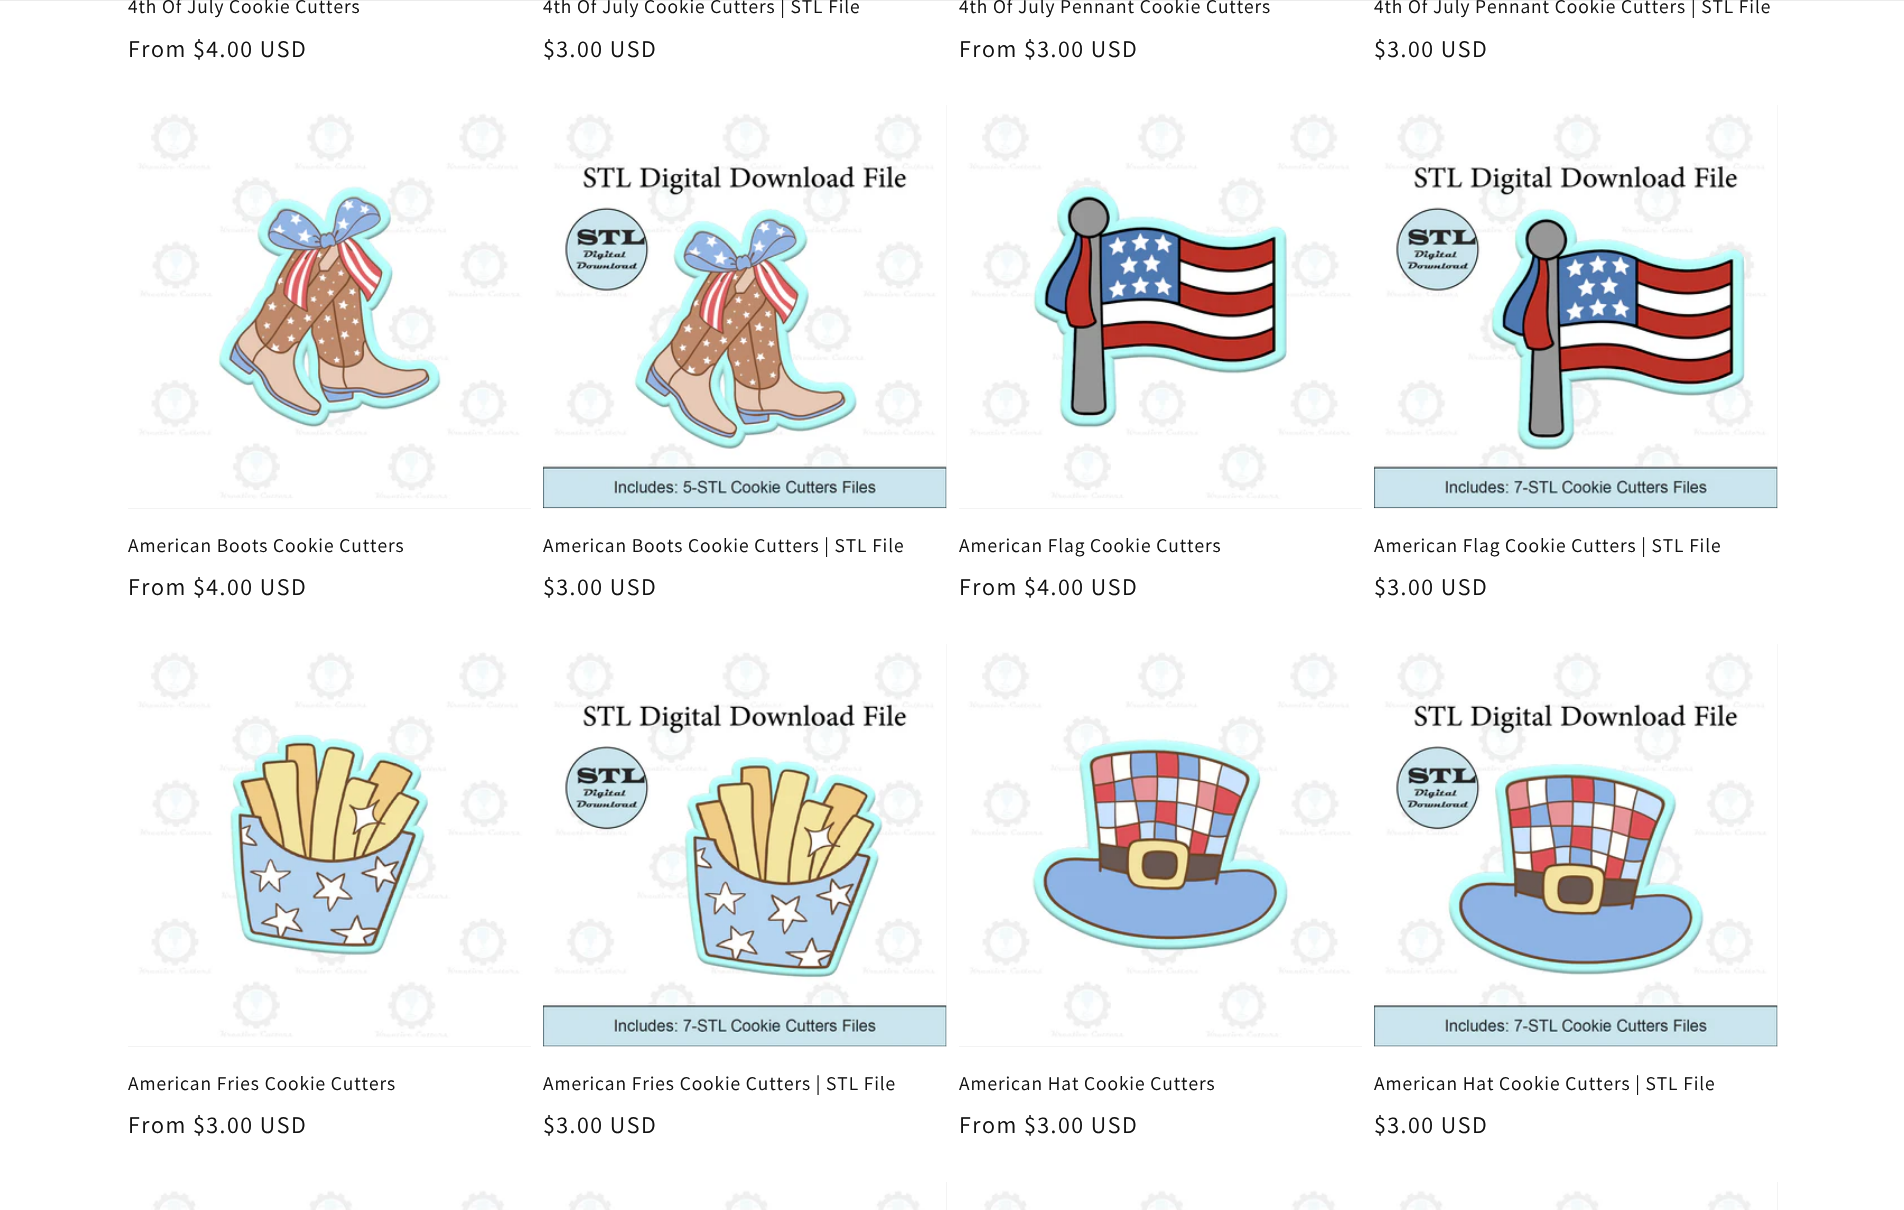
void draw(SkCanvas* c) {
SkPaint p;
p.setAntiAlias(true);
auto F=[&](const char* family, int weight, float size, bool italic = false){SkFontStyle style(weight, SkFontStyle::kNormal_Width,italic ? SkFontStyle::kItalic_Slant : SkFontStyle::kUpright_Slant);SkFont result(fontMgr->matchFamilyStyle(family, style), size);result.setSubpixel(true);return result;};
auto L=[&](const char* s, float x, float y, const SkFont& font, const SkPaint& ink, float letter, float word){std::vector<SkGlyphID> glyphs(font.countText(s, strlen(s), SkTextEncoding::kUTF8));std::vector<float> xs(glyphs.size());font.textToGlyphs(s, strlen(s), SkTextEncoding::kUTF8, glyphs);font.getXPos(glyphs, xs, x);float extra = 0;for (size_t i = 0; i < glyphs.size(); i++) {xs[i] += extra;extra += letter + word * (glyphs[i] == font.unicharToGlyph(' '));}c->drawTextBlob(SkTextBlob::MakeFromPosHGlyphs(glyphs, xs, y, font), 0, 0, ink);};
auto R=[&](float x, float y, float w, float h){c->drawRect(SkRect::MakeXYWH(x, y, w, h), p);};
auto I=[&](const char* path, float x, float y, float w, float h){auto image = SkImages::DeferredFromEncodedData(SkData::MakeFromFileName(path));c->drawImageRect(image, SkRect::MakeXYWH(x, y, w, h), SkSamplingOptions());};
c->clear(0xffffffff);
p.setColor(0x14121212);
R(0,0,1904,1);
auto f1 = F("Assistant",400,19.5);
p.setColor(0xff121212);
L("4th Of July Cookie Cutters",128,13,f1,p,.9,0);
auto f2 = F("Assistant",400,24);
L("From $4.00 USD",128,57,f2,p,1.5,0);
L("4th Of July Cookie Cutters | STL File",543,13,f1,p,.9,0);
L("$3.00 USD",543,57,f2,p,1.5,0);
L("4th Of July Pennant Cookie Cutters",959,13,f1,p,.9,0);
L("From $3.00 USD",959,57,f2,p,1.5,0);
L("4th Of July Pennant Cookie Cutters | STL File",1374,13,f1,p,.9,0);
L("$3.00 USD",1374,57,f2,p,1.5,0);
p.setColor(0xfff3f3f3);
R(128,508,403,1);
I("1.png",128,105,403,403);
p.setColor(0xff121212);
L("American Boots Cookie Cutters",128,552,f1,p,.9,0);
L("From $4.00 USD",128,595,f2,p,1.5,0);
p.setColor(0xfff3f3f3);
R(543,105,404,404);
I("2.png",543,105,404,403);
p.setColor(0xff121212);
L("American Boots Cookie Cutters | STL File",543,552,f1,p,.9,0);
L("$3.00 USD",543,595,f2,p,1.5,0);
p.setColor(0xfff3f3f3);
R(959,508,403,1);
I("3.png",959,105,403,403);
p.setColor(0xff121212);
L("American Flag Cookie Cutters",959,552,f1,p,.9,0);
L("From $4.00 USD",959,595,f2,p,1.5,0);
p.setColor(0xfff3f3f3);
R(1374,105,404,404);
I("4.png",1374,105,404,403);
p.setColor(0xff121212);
L("American Flag Cookie Cutters | STL File",1374,552,f1,p,.9,0);
L("$3.00 USD",1374,595,f2,p,1.5,0);
p.setColor(0xfff3f3f3);
R(128,1046,403,1);
I("5.png",128,644,403,402);
p.setColor(0xff121212);
L("American Fries Cookie Cutters",128,1090,f1,p,.9,0);
L("From $3.00 USD",128,1133,f2,p,1.5,0);
p.setColor(0xfff3f3f3);
R(543,644,404,403);
I("6.png",543,644,404,403);
p.setColor(0xff121212);
L("American Fries Cookie Cutters | STL File",543,1090,f1,p,.9,0);
L("$3.00 USD",543,1133,f2,p,1.5,0);
p.setColor(0xfff3f3f3);
R(959,1046,403,1);
I("7.png",959,644,403,402);
p.setColor(0xff121212);
L("American Hat Cookie Cutters",959,1090,f1,p,.9,0);
L("From $3.00 USD",959,1133,f2,p,1.5,0);
p.setColor(0xfff3f3f3);
R(1374,644,404,403);
I("8.png",1374,644,404,403);
p.setColor(0xff121212);
L("American Hat Cookie Cutters | STL File",1374,1090,f1,p,.9,0);
L("$3.00 USD",1374,1133,f2,p,1.5,0);
I("9.png",128,1182,403,28);
p.setColor(0xfff3f3f3);
R(946,1182,1,28);
I("10.png",543,1182,403,28);
I("11.png",959,1182,403,28);
R(1777,1182,1,28);
I("12.png",1374,1182,403,28);
}
